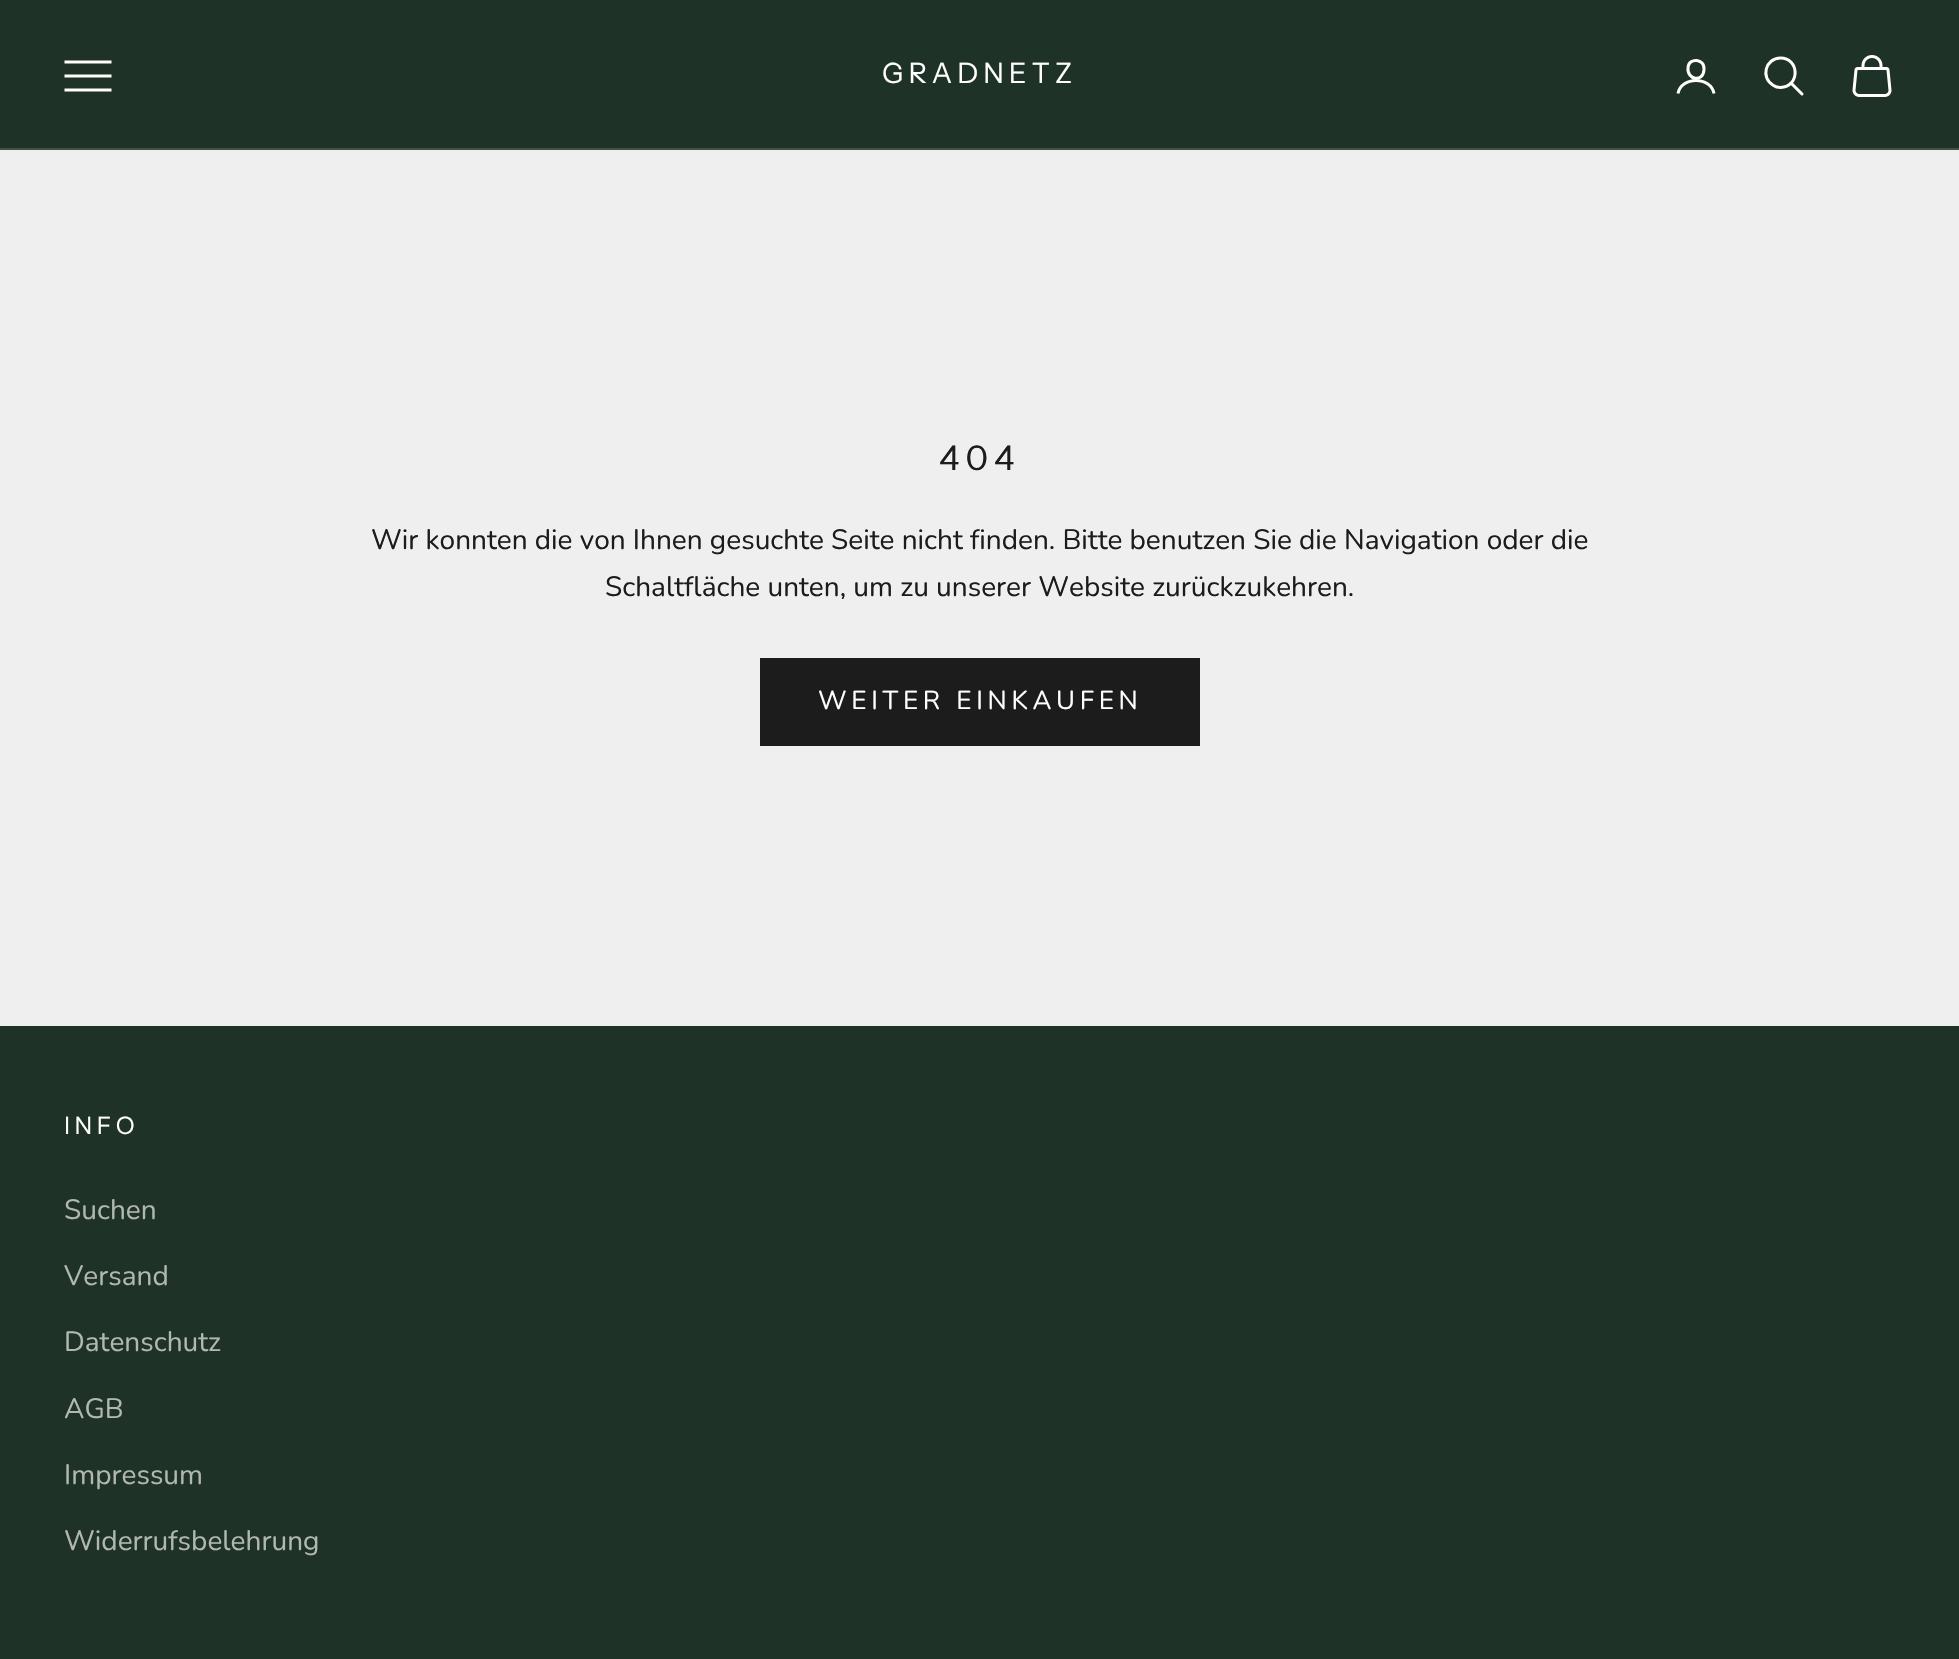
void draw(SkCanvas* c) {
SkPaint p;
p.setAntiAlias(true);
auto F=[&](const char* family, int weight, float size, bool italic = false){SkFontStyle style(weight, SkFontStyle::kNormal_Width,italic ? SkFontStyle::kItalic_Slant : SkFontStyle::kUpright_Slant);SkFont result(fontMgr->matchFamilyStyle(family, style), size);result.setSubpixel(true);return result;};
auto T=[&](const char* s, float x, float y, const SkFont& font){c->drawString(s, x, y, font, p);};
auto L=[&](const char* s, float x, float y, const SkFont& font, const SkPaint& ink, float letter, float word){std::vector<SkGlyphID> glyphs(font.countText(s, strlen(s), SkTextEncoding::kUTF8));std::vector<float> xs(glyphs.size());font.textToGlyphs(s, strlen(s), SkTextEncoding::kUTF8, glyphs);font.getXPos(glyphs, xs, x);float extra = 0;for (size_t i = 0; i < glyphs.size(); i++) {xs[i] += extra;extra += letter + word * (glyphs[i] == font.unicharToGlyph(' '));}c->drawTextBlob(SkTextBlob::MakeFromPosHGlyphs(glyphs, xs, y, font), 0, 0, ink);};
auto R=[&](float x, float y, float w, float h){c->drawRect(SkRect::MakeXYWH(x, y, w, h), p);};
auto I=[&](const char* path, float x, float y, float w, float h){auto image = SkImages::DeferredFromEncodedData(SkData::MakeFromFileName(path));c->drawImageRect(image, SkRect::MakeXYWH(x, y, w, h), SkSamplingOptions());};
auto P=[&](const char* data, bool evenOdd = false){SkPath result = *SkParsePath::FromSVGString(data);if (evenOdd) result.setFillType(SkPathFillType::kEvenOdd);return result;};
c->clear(0xffefefef);
p.setColor(0xff1f3227);
R(0,0,1959,148);
p.setColor(0xff415147);
R(0,148,1959,2);
p.setStroke(true);
p.setStrokeWidth(3);
p.setStrokeCap(SkPaint::kSquare_Cap);
p.setColor(0xffffffff);
c->drawPath(P("M66 90h44m-44-14h44m-44-14h44"),p);
auto f1 = F("Instrument Sans",400,28);
p.setStroke(false);
L("GRADNETZ",882,83,f1,p,5,0);
p.setStroke(true);
p.setStrokeCap(SkPaint::kRound_Cap);
p.setStrokeJoin(SkPaint::kRound_Join);
c->drawPath(P("M1704 69.5c-.5 13.5-17.5 10.5-16-2c1-10.5 17-9 16 2z"),p);
p.setStrokeCap(SkPaint::kButt_Cap);
p.setStrokeJoin(SkPaint::kMiter_Join);
c->drawPath(P("M1678 93.5c3-17.5 33-17.5 36 0"),p);
c->drawPath(P("M1780.5 58c-15 0-20.5 20-7 27.5c2 1.5 4.5 2 7 2c20-1 19-29.5 0-29.5z"),p);
p.setStrokeCap(SkPaint::kRound_Cap);
c->drawPath(P("M1791.5 83.5l10.5 10.5"),p);
I("1.png",1852,55,40,42);
auto f2 = F("Instrument Sans",400,34);
p.setStroke(false);
p.setColor(0xff1c1c1c);
L("404",939,470,f2,p,6,0);
auto f3 = F("Nunito",400,28);
T("Wir konnten die von Ihnen gesuchte Seite nicht finden. Bitte benutzen Sie die Navigation oder die",371,549,f3);
T("Schaltfläche unten, um zu unserer Website zurückzukehren.",605,596,f3);
c->drawRect(SkRect::MakeXYWH(761,659,438,86),p);
p.setStroke(true);
p.setStrokeWidth(2);
p.setStrokeCap(SkPaint::kButt_Cap);
c->drawRect(SkRect::MakeXYWH(761,659,438,86),p);
auto f4 = F("Nunito",400,26);
p.setStroke(false);
p.setColor(0xffffffff);
L("WEITER EINKAUFEN",818,709,f4,p,4.7,0);
p.setColor(0xff1f3227);
R(0,1026,1959,633);
auto f5 = F("Instrument Sans",400,24);
p.setColor(0xffffffff);
L("INFO",64,1134,f5,p,4.5,0);
p.setColor(0xffb1b7b3);
T("Suchen",64,1219,f3);
T("Versand",64,1285,f3);
T("Datenschutz",64,1351,f3);
T("AGB",64,1418,f3);
T("Impressum",64,1484,f3);
T("Widerrufsbelehrung",64,1550,f3);
}
